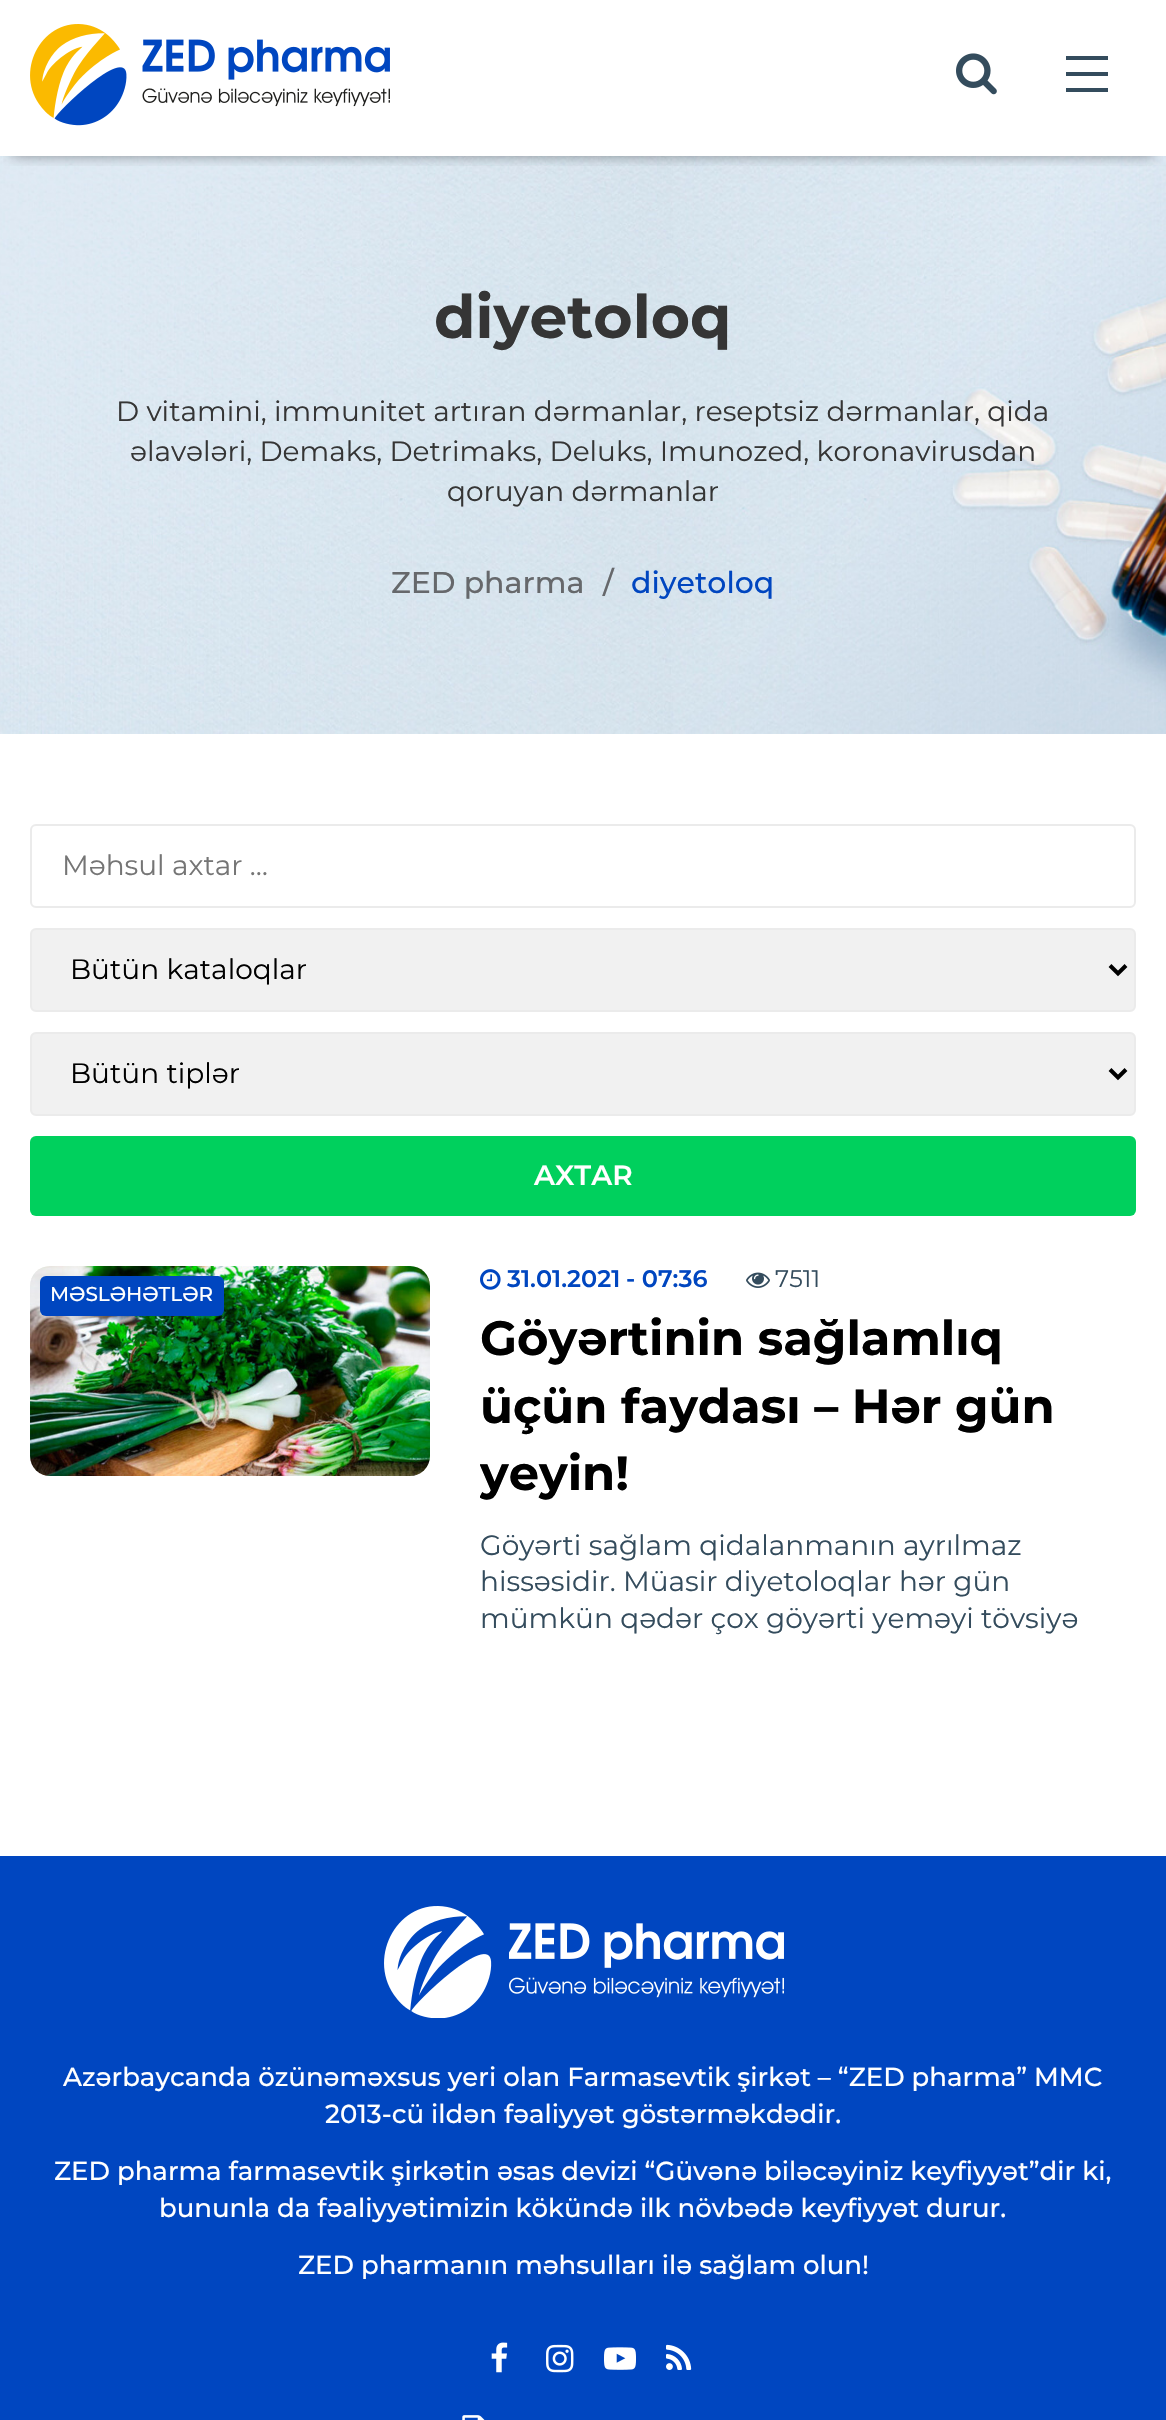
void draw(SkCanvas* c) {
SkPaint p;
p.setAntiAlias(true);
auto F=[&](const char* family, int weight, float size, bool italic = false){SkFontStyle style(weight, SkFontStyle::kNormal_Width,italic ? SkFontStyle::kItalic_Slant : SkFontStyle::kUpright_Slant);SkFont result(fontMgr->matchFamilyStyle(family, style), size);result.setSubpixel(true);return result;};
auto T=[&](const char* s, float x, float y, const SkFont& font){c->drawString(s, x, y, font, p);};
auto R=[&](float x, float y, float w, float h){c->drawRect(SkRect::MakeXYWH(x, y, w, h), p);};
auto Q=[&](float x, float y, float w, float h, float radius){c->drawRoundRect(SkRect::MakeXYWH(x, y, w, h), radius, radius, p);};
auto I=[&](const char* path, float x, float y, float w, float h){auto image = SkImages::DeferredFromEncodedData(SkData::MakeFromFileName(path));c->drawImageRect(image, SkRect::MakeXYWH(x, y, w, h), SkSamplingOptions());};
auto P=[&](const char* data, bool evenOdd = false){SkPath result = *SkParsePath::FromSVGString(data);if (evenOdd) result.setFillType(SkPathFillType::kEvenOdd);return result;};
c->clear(0xffffffff);
I("3.png",0,156,1166,578);
c->save();
c->clipRect(SkRect::MakeXYWH(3,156,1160,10));
p.setColor(0x80000000);
p.setMaskFilter(SkMaskFilter::MakeBlur(kNormal_SkBlurStyle, 7));
c->drawRect(SkRect::MakeXYWH(12,22,1142,132),p);
p.setMaskFilter(nullptr);
c->restore();
I("1.png",30,24,360,102);
I("2.png",956,53,41,42);
p.setColor(0xff344c5d);
R(1066,72,42,4);
R(1066,56,42,4);
R(1066,88,42,4);
auto f1 = F("Montserrat",700,60);
p.setColor(0xff353535);
T("diyetoloq",434,338,f1);
auto f2 = F("Montserrat",400,28);
T("D vitamini, immunitet artıran dərmanlar, reseptsiz dərmanlar, qida",116,421,f2);
T("əlavələri, Demaks, Detrimaks, Deluks, Imunozed, koronavirusdan",130,461,f2);
T("qoruyan dərmanlar",447,501,f2);
auto f3 = F("Montserrat",500,30);
p.setColor(0xff66686b);
T("ZED pharma",391,593,f3);
T("/",603,593,f3);
p.setColor(0xff0046c0);
T("diyetoloq",631,593,f3);
p.setStroke(true);
p.setStrokeWidth(2);
p.setColor(0xffebebeb);
c->drawRoundRect(SkRect::MakeXYWH(31,825,1104,82),5,5,p);
p.setStroke(false);
p.setColor(0xff757575);
T("Məhsul axtar …",62,875,f2);
p.setColor(0xfff1f1f1);
c->drawRoundRect(SkRect::MakeXYWH(31,929,1104,82),5,5,p);
p.setStroke(true);
p.setColor(0xffebebeb);
c->drawRoundRect(SkRect::MakeXYWH(31,929,1104,82),5,5,p);
p.setStrokeWidth(4);
p.setColor(0xff000000);
c->drawPath(P("M1110 965.5l8 8l8-8"),p);
p.setStroke(false);
T("Bütün kataloqlar",70,979,f2);
p.setColor(0xfff1f1f1);
c->drawRoundRect(SkRect::MakeXYWH(31,1033,1104,82),5,5,p);
p.setStroke(true);
p.setStrokeWidth(2);
p.setColor(0xffebebeb);
c->drawRoundRect(SkRect::MakeXYWH(31,1033,1104,82),5,5,p);
p.setStrokeWidth(4);
p.setColor(0xff000000);
c->drawPath(P("M1110 1069.5l8 8l8-8"),p);
p.setStroke(false);
T("Bütün tiplər",70,1083,f2);
p.setColor(0xff00d05d);
Q(30,1136,1106,80,6);
auto f4 = F("Montserrat",600,28);
p.setColor(0xffffffff);
T("AXTAR",534,1185,f4);
I("4.png",30,1266,400,210);
I("5.png",30,1266,400,210);
I("6.png",480,1269,21,21);
auto f5 = F("Montserrat",600,24);
p.setColor(0xff0046c0);
T("31.01.2021",507,1287,f5);
T("- 07:36",626,1287,f5);
I("7.png",746,1272,24,16);
auto f6 = F("Montserrat",400,24);
p.setColor(0xff344c5d);
T("7511",775,1287,f6);
auto f7 = F("Montserrat",700,48);
p.setColor(0xff000000);
T("Göyərtinin sağlamlıq",480,1355,f7);
T("üçün faydası – Hər gün",480,1423,f7);
c->save();
c->clipRect(SkRect::MakeXYWH(480,1266,656,370));
T("yeyin!",480,1490,f7);
c->restore();
p.setColor(0xff344c5d);
T("Göyərti sağlam qidalanmanın ayrılmaz",480,1555,f2);
T("hissəsidir. Müasir diyetoloqlar hər gün",480,1591,f2);
T("mümkün qədər çox göyərti yeməyi tövsiyə",480,1628,f2);
p.setColor(0xff0046c0);
Q(40,1276,184,40,6);
auto f8 = F("Montserrat",500,20);
p.setColor(0xffffffff);
T("MƏSLƏHƏTLƏR",50,1301,f8);
p.setColor(0xff0046c0);
R(0,1856,1166,564);
I("8.png",384,1906,400,112);
auto f9 = F("Montserrat",500,26);
p.setColor(0xffffffff);
T("Azərbaycanda özünəməxsus yeri olan Farmasevtik şirkət – “ZED pharma” MMC",63,2086,f9);
T("2013-cü ildən fəaliyyət göstərməkdədir.",325,2123,f9);
T("ZED pharma farmasevtik şirkətin əsas devizi “Güvənə biləcəyiniz keyfiyyət”dir ki,",54,2180,f9);
T("bununla da fəaliyyətimizin kökündə ilk növbədə keyfiyyət durur.",159,2217,f9);
T("ZED pharmanın məhsulları ilə sağlam olun!",298,2274,f9);
I("9.png",491,2342,17,31);
I("10.png",546,2344,28,29);
I("11.png",604,2347,32,23);
I("12.png",666,2344,26,26);
I("13.png",462,2415,23,5);
}
